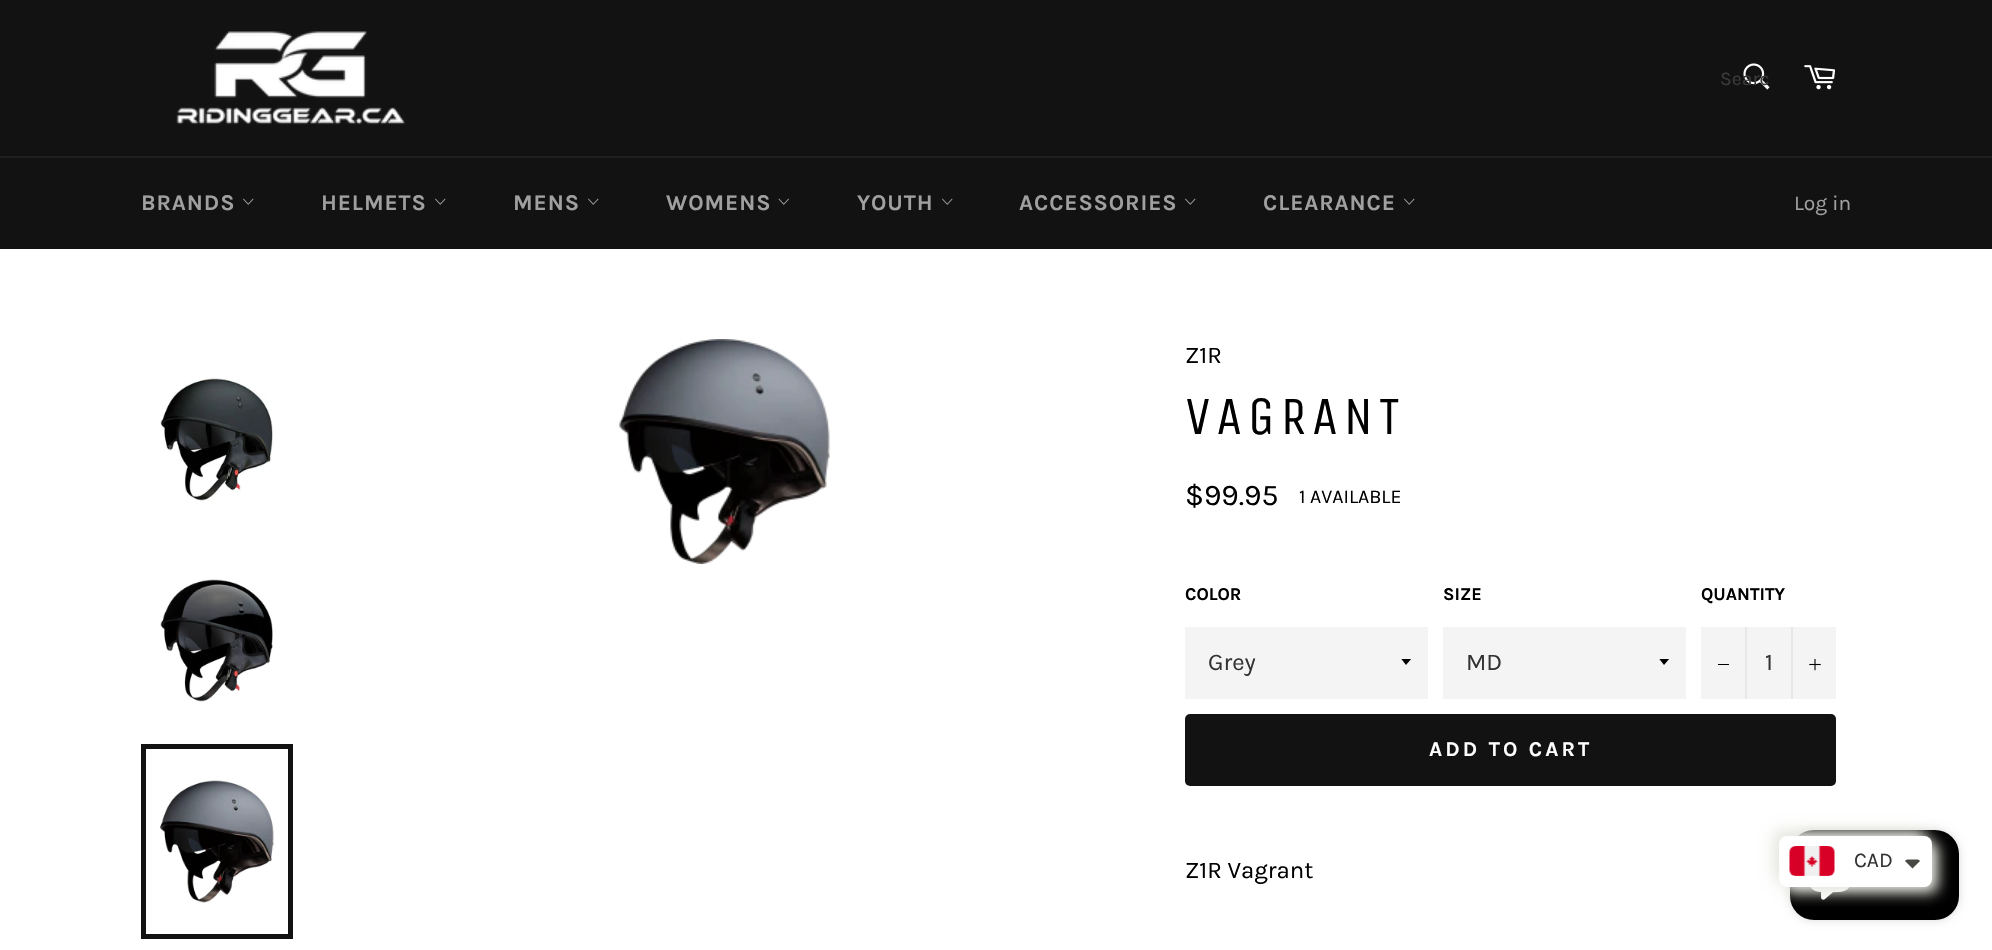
void draw(SkCanvas* c) {
SkPaint p;
p.setAntiAlias(true);
auto F=[&](const char* family, int weight, float size, bool italic = false){SkFontStyle style(weight, SkFontStyle::kNormal_Width,italic ? SkFontStyle::kItalic_Slant : SkFontStyle::kUpright_Slant);SkFont result(fontMgr->matchFamilyStyle(family, style), size);result.setSubpixel(true);return result;};
auto T=[&](const char* s, float x, float y, const SkFont& font){c->drawString(s, x, y, font, p);};
auto L=[&](const char* s, float x, float y, const SkFont& font, const SkPaint& ink, float letter, float word){std::vector<SkGlyphID> glyphs(font.countText(s, strlen(s), SkTextEncoding::kUTF8));std::vector<float> xs(glyphs.size());font.textToGlyphs(s, strlen(s), SkTextEncoding::kUTF8, glyphs);font.getXPos(glyphs, xs, x);float extra = 0;for (size_t i = 0; i < glyphs.size(); i++) {xs[i] += extra;extra += letter + word * (glyphs[i] == font.unicharToGlyph(' '));}c->drawTextBlob(SkTextBlob::MakeFromPosHGlyphs(glyphs, xs, y, font), 0, 0, ink);};
auto R=[&](float x, float y, float w, float h){c->drawRect(SkRect::MakeXYWH(x, y, w, h), p);};
auto Q=[&](float x, float y, float w, float h, float radius){c->drawRoundRect(SkRect::MakeXYWH(x, y, w, h), radius, radius, p);};
auto I=[&](const char* path, float x, float y, float w, float h){auto image = SkImages::DeferredFromEncodedData(SkData::MakeFromFileName(path));c->drawImageRect(image, SkRect::MakeXYWH(x, y, w, h), SkSamplingOptions());};
auto P=[&](const char* data, bool evenOdd = false){SkPath result = *SkParsePath::FromSVGString(data);if (evenOdd) result.setFillType(SkPathFillType::kEvenOdd);return result;};
c->clear(0xffffffff);
p.setColor(0xff121212);
R(0,0,1992,249);
I("1.png",176,31,230,94);
I("2.png",1743,63,27,27);
auto f1 = F("Karla",400,19.5);
p.setColor(0xff3a3a3a);
T("Searc",1720,85,f1);
I("3.png",1804,65,31,25);
p.setColor(0xff1f1f1f);
R(0,156,1992,2);
auto f2 = F("Karla",700,22.5);
p.setColor(0xffa0a0a0);
L("BRANDS",141,210,f2,p,.9,0);
I("4.png",243,198,11,7);
L("HELMETS",321,210,f2,p,.9,0);
I("4.png",435,198,11,7);
L("MENS",513,210,f2,p,.9,0);
I("4.png",588,198,11,7);
L("WOMENS",666,210,f2,p,.9,0);
I("5.png",778,198,11,7);
L("YOUTH",857,210,f2,p,.9,0);
I("4.png",942,198,11,7);
L("ACCESSORIES",1019,210,f2,p,.9,0);
I("4.png",1185,198,11,7);
L("CLEARANCE",1263,210,f2,p,.9,0);
I("4.png",1404,198,11,7);
auto f3 = F("Karla",400,21);
T("Log in",1794,210,f3);
I("6.png",159,378,115,123);
I("7.png",160,579,113,123);
I("8.png",160,780,114,123);
p.setStroke(true);
p.setStrokeWidth(5);
p.setColor(0xff121212);
c->drawRect(SkRect::MakeXYWH(143.5,746.5,147,190),p);
I("9.png",619,339,211,225);
auto f4 = F("Karla",400,24);
p.setStroke(false);
p.setColor(0xff000000);
T("Z1R",1185,363,f4);
auto f5 = F("Unica One",400,54);
L("VAGRANT",1185,434,f5,p,5.5,0);
auto f6 = F("Karla",400,30);
T("$99.95",1185,505,f6);
T("1 AVAILABLE",1299,503,f1);
auto f7 = F("Karla",700,18);
T("COLOR",1185,600,f7);
p.setColor(0xfff4f4f4);
R(1185,627,243,72);
c->save();
c->clipRect(SkRect::MakeXYWH(1401,659,12,7));
p.setColor(0xff000000);
c->drawPath(P("M1401 658.5l5 6.5l5.5-6.5z"),p);
c->restore();
p.setColor(0xff333333);
T("Grey",1208,670,f4);
p.setColor(0xff000000);
T("SIZE",1443,600,f7);
p.setColor(0xfff4f4f4);
R(1443,627,243,72);
c->save();
c->clipRect(SkRect::MakeXYWH(1659,659,12,7));
p.setColor(0xff000000);
c->drawPath(P("M1659 658.5l5 6.5l5.5-6.5z"),p);
c->restore();
p.setColor(0xff333333);
T("MD",1466,670,f4);
p.setColor(0xff000000);
T("QUANTITY",1701,600,f7);
p.setColor(0xfff4f4f4);
R(1701,627,135,72);
p.setColor(0xffe7e7e7);
R(1745,627,2,72);
p.setColor(0xff000000);
R(1718,664,11,1);
p.setColor(0xff333333);
T("1",1765,670,f4);
p.setColor(0xffe7e7e7);
R(1791,627,2,72);
I("10.png",1809,659,12,12);
p.setColor(0xff121212);
Q(1185,714,651,72,5);
auto f8 = F("Karla",700,21);
p.setColor(0xffffffff);
L("ADD TO CART",1429,756,f8,p,3.1,0);
p.setColor(0xff000000);
T("Z1R Vagrant",1185,878,f4);
p.setColor(0x26000000);
p.setMaskFilter(SkMaskFilter::MakeBlur(kNormal_SkBlurStyle, 4));
c->drawRoundRect(SkRect::MakeXYWH(1790,830,169,90),24,24,p);
p.setMaskFilter(nullptr);
p.setColor(0xff000000);
Q(1790,830,169,90,24);
I("11.png",1810,887,40,13);
p.setColor(0xffe8e8e2);
p.setMaskFilter(SkMaskFilter::MakeBlur(kNormal_SkBlurStyle, 7));
c->drawRoundRect(SkRect::MakeXYWH(1773,830,153,51),8,8,p);
p.setMaskFilter(nullptr);
p.setMaskFilter(SkMaskFilter::MakeBlur(kNormal_SkBlurStyle, 7));
c->drawRoundRect(SkRect::MakeXYWH(1785,842,153,51),8,8,p);
p.setMaskFilter(nullptr);
p.setColor(0xffffffff);
Q(1779,836,153,51,8);
I("12.png",1789,846,46,30);
p.setColor(0xff333333);
T("CAD",1854,867,f3);
p.setColor(0xff474942);
c->drawPath(P("M1908 859.5c-1 0-2.5 .5-3 1.5l7.5 7.5l7.5-7.5c-.5-1-2-1.5-3-1.5z"),p);
}
